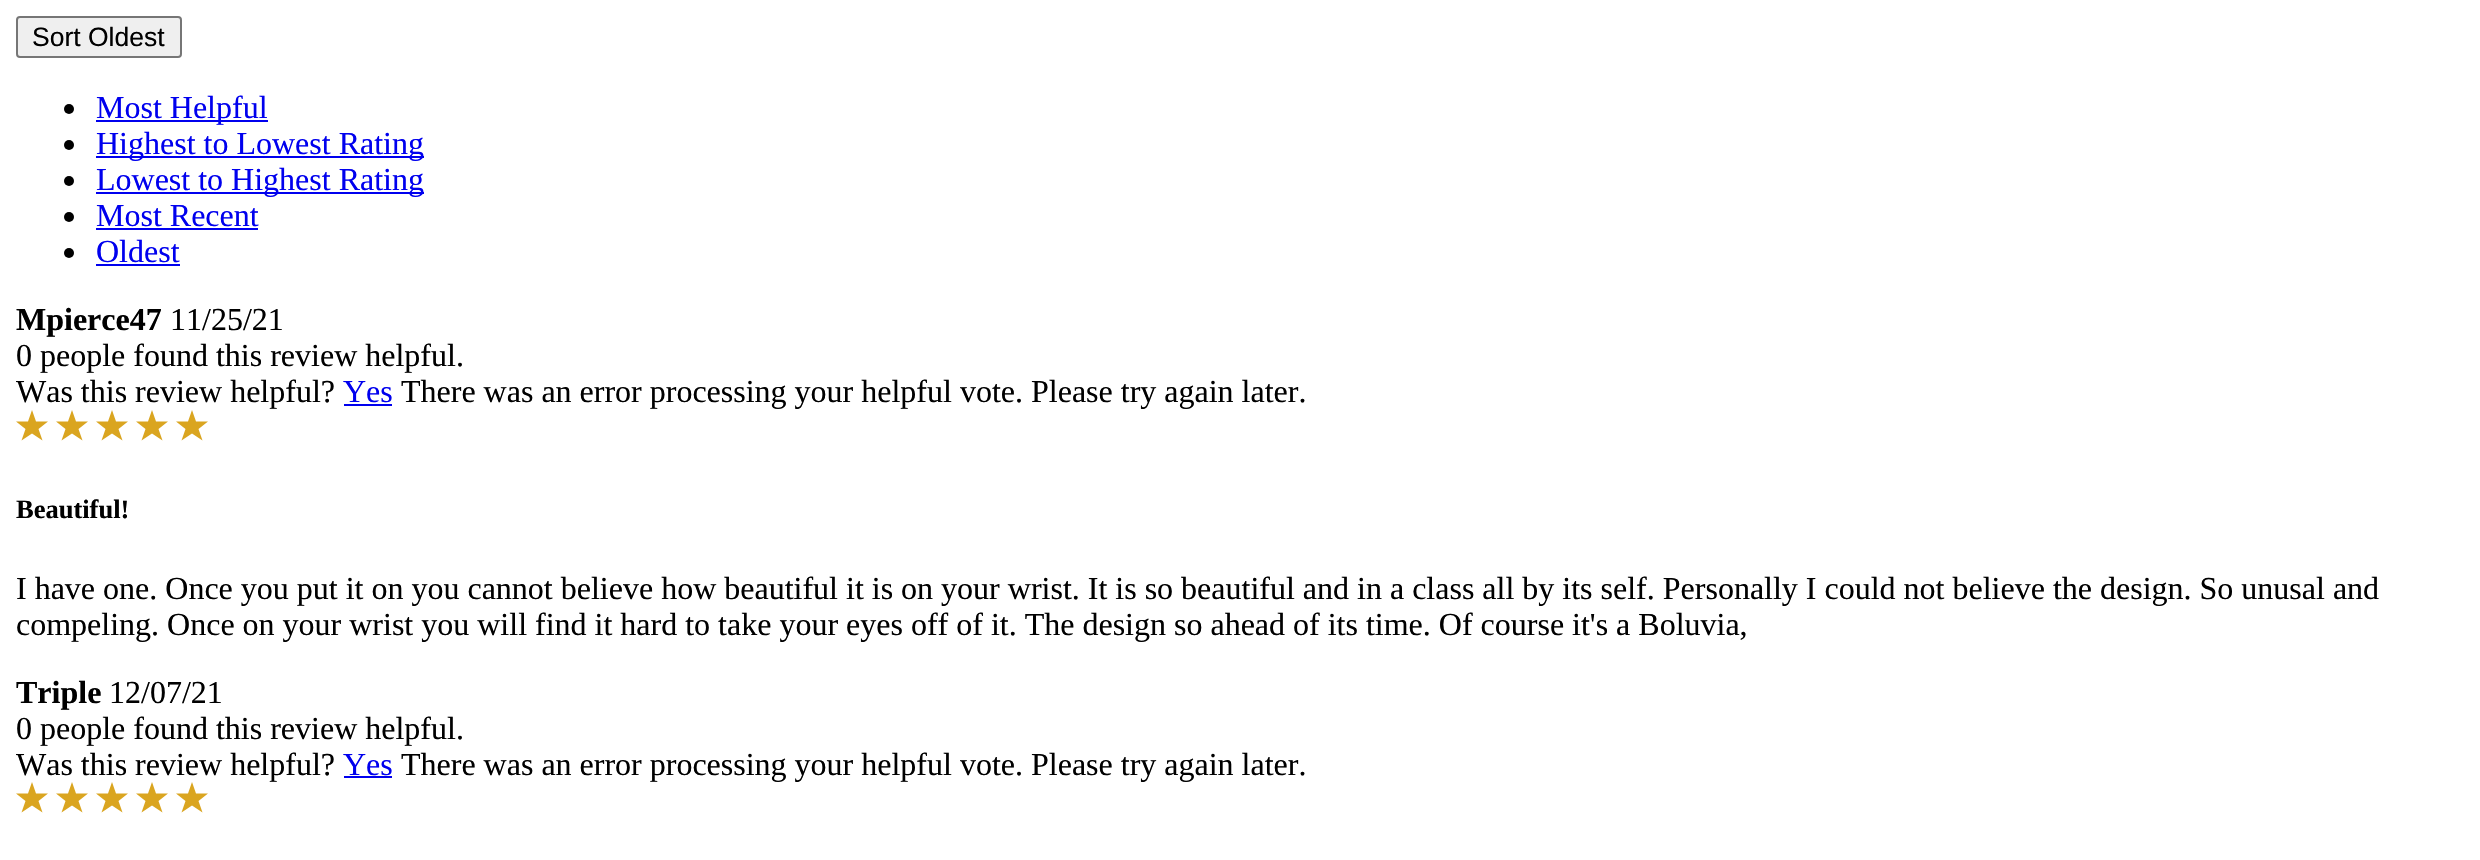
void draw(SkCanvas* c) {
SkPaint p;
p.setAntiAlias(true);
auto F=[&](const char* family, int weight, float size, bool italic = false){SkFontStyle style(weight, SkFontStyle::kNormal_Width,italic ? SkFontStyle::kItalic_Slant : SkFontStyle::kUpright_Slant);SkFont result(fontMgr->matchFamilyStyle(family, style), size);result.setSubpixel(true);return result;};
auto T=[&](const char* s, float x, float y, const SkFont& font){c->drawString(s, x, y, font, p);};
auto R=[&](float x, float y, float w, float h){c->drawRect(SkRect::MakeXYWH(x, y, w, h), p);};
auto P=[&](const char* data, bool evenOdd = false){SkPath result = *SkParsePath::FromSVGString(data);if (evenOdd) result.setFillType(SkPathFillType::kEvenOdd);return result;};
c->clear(0xffffffff);
p.setColor(0xffefefef);
c->drawRoundRect(SkRect::MakeXYWH(17,17,164,40),3,3,p);
p.setStroke(true);
p.setStrokeWidth(2);
p.setColor(0xff767676);
c->drawRoundRect(SkRect::MakeXYWH(17,17,164,40),3,3,p);
auto f1 = F("Liberation Sans",400,26.5);
p.setStroke(false);
p.setColor(0xff000000);
T("Sort Oldest",32,46,f1);
c->drawCircle(69,109,5,p);
p.setColor(0xff0000ee);
R(96,120,172,2);
auto f2 = F("Liberation Serif",400,32);
T("Most Helpful",96,118,f2);
p.setColor(0xff000000);
c->drawCircle(69,145,5,p);
p.setColor(0xff0000ee);
R(96,156,328,2);
T("Highest to Lowest Rating",96,154,f2);
p.setColor(0xff000000);
c->drawCircle(69,181,5,p);
p.setColor(0xff0000ee);
R(96,192,328,2);
T("Lowest to Highest Rating",96,190,f2);
p.setColor(0xff000000);
c->drawCircle(69,217,5,p);
p.setColor(0xff0000ee);
T("Most Recent",96,226,f2);
R(96,228,162,2);
p.setColor(0xff000000);
c->drawCircle(69,253,5,p);
p.setColor(0xff0000ee);
T("Oldest",96,262,f2);
R(96,264,84,2);
auto f3 = F("Liberation Serif",700,32);
p.setColor(0xff000000);
T("Mpierce47",16,330,f3);
T("11/25/21",170,330,f2);
T("0 people found this review helpful.",16,366,f2);
T("Was this review helpful?",16,402,f2);
p.setColor(0xff0000ee);
T("Yes",343,402,f2);
R(344,404,48,2);
p.setColor(0xff000000);
T("There was an error processing your helpful vote. Please try again later.",401,402,f2);
p.setColor(0xffdaa520);
c->drawPath(P("M48 421.5h-12l-4-11.5l-4 11.5h-12l9.5 7.5l-4 11.5l10.5-7l10.5 7l-4-11.5z"),p);
c->drawPath(P("M88 421.5h-12l-4-11.5l-4 11.5h-12l9.5 7.5l-4 11.5l10.5-7l10.5 7l-4-11.5z"),p);
c->drawPath(P("M128 421.5h-12l-4-11.5l-4 11.5h-12l9.5 7.5l-4 11.5l10.5-7l10.5 7l-4-11.5z"),p);
c->drawPath(P("M168 421.5h-12l-4-11.5l-4 11.5h-12l9.5 7.5l-4 11.5l10.5-7l10.5 7l-4-11.5z"),p);
c->drawPath(P("M208 421.5h-12l-4-11.5l-4 11.5h-12l9.5 7.5l-4 11.5l10.5-7l10.5 7l-4-11.5z"),p);
auto f4 = F("Liberation Serif",700,26.5);
p.setColor(0xff000000);
T("Beautiful!",16,518,f4);
T("I have one. Once you put it on you cannot believe how beautiful it is on your wrist. It is so beautiful and in a class all by its self. Personally I could not believe the design. So unusal and",16,599,f2);
T("compeling. Once on your wrist you will find it hard to take your eyes off of it. The design so ahead of its time. Of course it's a Boluvia,",16,635,f2);
T("Triple",16,703,f3);
T("12/07/21",109,703,f2);
T("0 people found this review helpful.",16,739,f2);
T("Was this review helpful?",16,775,f2);
p.setColor(0xff0000ee);
T("Yes",343,775,f2);
R(344,776,48,2);
p.setColor(0xff000000);
T("There was an error processing your helpful vote. Please try again later.",401,775,f2);
p.setColor(0xffdaa520);
c->drawPath(P("M48 793.5h-12l-4-11.5l-4 11.5h-12l9.5 7.5l-4 11.5l10.5-7l10.5 7l-4-11.5z"),p);
c->drawPath(P("M88 793.5h-12l-4-11.5l-4 11.5h-12l9.5 7.5l-4 11.5l10.5-7l10.5 7l-4-11.5z"),p);
c->drawPath(P("M128 793.5h-12l-4-11.5l-4 11.5h-12l9.5 7.5l-4 11.5l10.5-7l10.5 7l-4-11.5z"),p);
c->drawPath(P("M168 793.5h-12l-4-11.5l-4 11.5h-12l9.5 7.5l-4 11.5l10.5-7l10.5 7l-4-11.5z"),p);
c->drawPath(P("M208 793.5h-12l-4-11.5l-4 11.5h-12l9.5 7.5l-4 11.5l10.5-7l10.5 7l-4-11.5z"),p);
}
